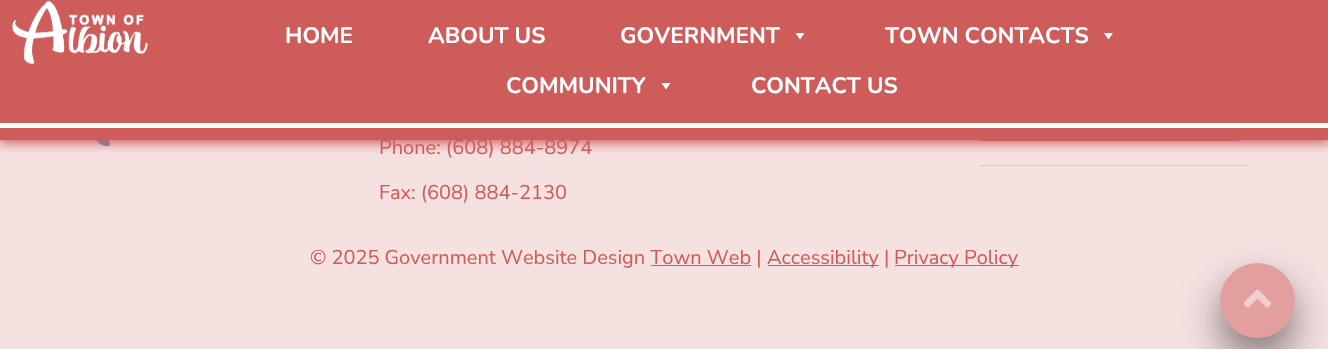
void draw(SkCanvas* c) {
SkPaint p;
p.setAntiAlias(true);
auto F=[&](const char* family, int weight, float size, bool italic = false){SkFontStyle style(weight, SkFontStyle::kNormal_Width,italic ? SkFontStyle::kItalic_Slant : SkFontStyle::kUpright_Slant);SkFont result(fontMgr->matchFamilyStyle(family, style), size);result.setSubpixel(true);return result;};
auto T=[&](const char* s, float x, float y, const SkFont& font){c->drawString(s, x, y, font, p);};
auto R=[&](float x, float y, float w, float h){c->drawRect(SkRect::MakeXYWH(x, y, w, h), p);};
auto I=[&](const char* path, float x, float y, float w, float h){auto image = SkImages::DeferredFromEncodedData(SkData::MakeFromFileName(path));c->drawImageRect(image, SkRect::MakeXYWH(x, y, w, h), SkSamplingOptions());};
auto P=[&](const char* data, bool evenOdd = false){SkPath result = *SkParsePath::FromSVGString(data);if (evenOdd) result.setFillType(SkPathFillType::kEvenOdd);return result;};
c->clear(0xfff6e1e1);
I("2.png",96,140,14,6);
p.setColor(0xffcd5c5b);
R(980,140,259,1);
p.setMaskFilter(SkMaskFilter::MakeBlur(kNormal_SkBlurStyle, 5.5));
c->drawRect(SkRect::MakeXYWH(-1,0,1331,143),p);
p.setMaskFilter(nullptr);
R(0,0,1328,140);
I("1.png",12,0,136,64);
auto f1 = F("Nunito",700,22.5);
p.setColor(0xffffffff);
T("HOME",285,43,f1);
T("ABOUT US",428,43,f1);
T("GOVERNMENT",620,43,f1);
c->drawPath(P("M804.5 33l-4.5 6.5l-4.5-6.5z"),p);
T("TOWN CONTACTS",885,43,f1);
c->drawPath(P("M1113 33l-4.5 6.5l-4.5-6.5z"),p);
T("COMMUNITY",506,93,f1);
c->drawPath(P("M670.5 83l-4.5 6.5l-4.5-6.5z"),p);
T("CONTACT US",751,93,f1);
R(0,123,1328,5);
auto f2 = F("Nunito Sans",200,20);
p.setColor(0xffcd5c5b);
T("Phone: (608) 884-8974",379,154,f2);
T("Fax: (608) 884-2130",379,199,f2);
p.setColor(0xffecc0c0);
R(980,165,270,1);
p.setColor(0xffcd5c5b);
T("© 2025 Government Website Design Town Web |",310,264,f2);
R(768,265,111,1);
T("Accessibility |",767,264,f2);
R(895,265,124,1);
T("Privacy Policy",894,264,f2);
R(651,265,100,1);
p.setColor(0xff7b7171);
p.setMaskFilter(SkMaskFilter::MakeBlur(kNormal_SkBlurStyle, 20));
c->drawRoundRect(SkRect::MakeXYWH(1220,283,75,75),37.5,37.5,p);
p.setMaskFilter(nullptr);
p.setColor(0xffe29f9e);
c->drawCircle(1257.5,300.5,37.5,p);
I("3.png",1243,289,29,19);
}
